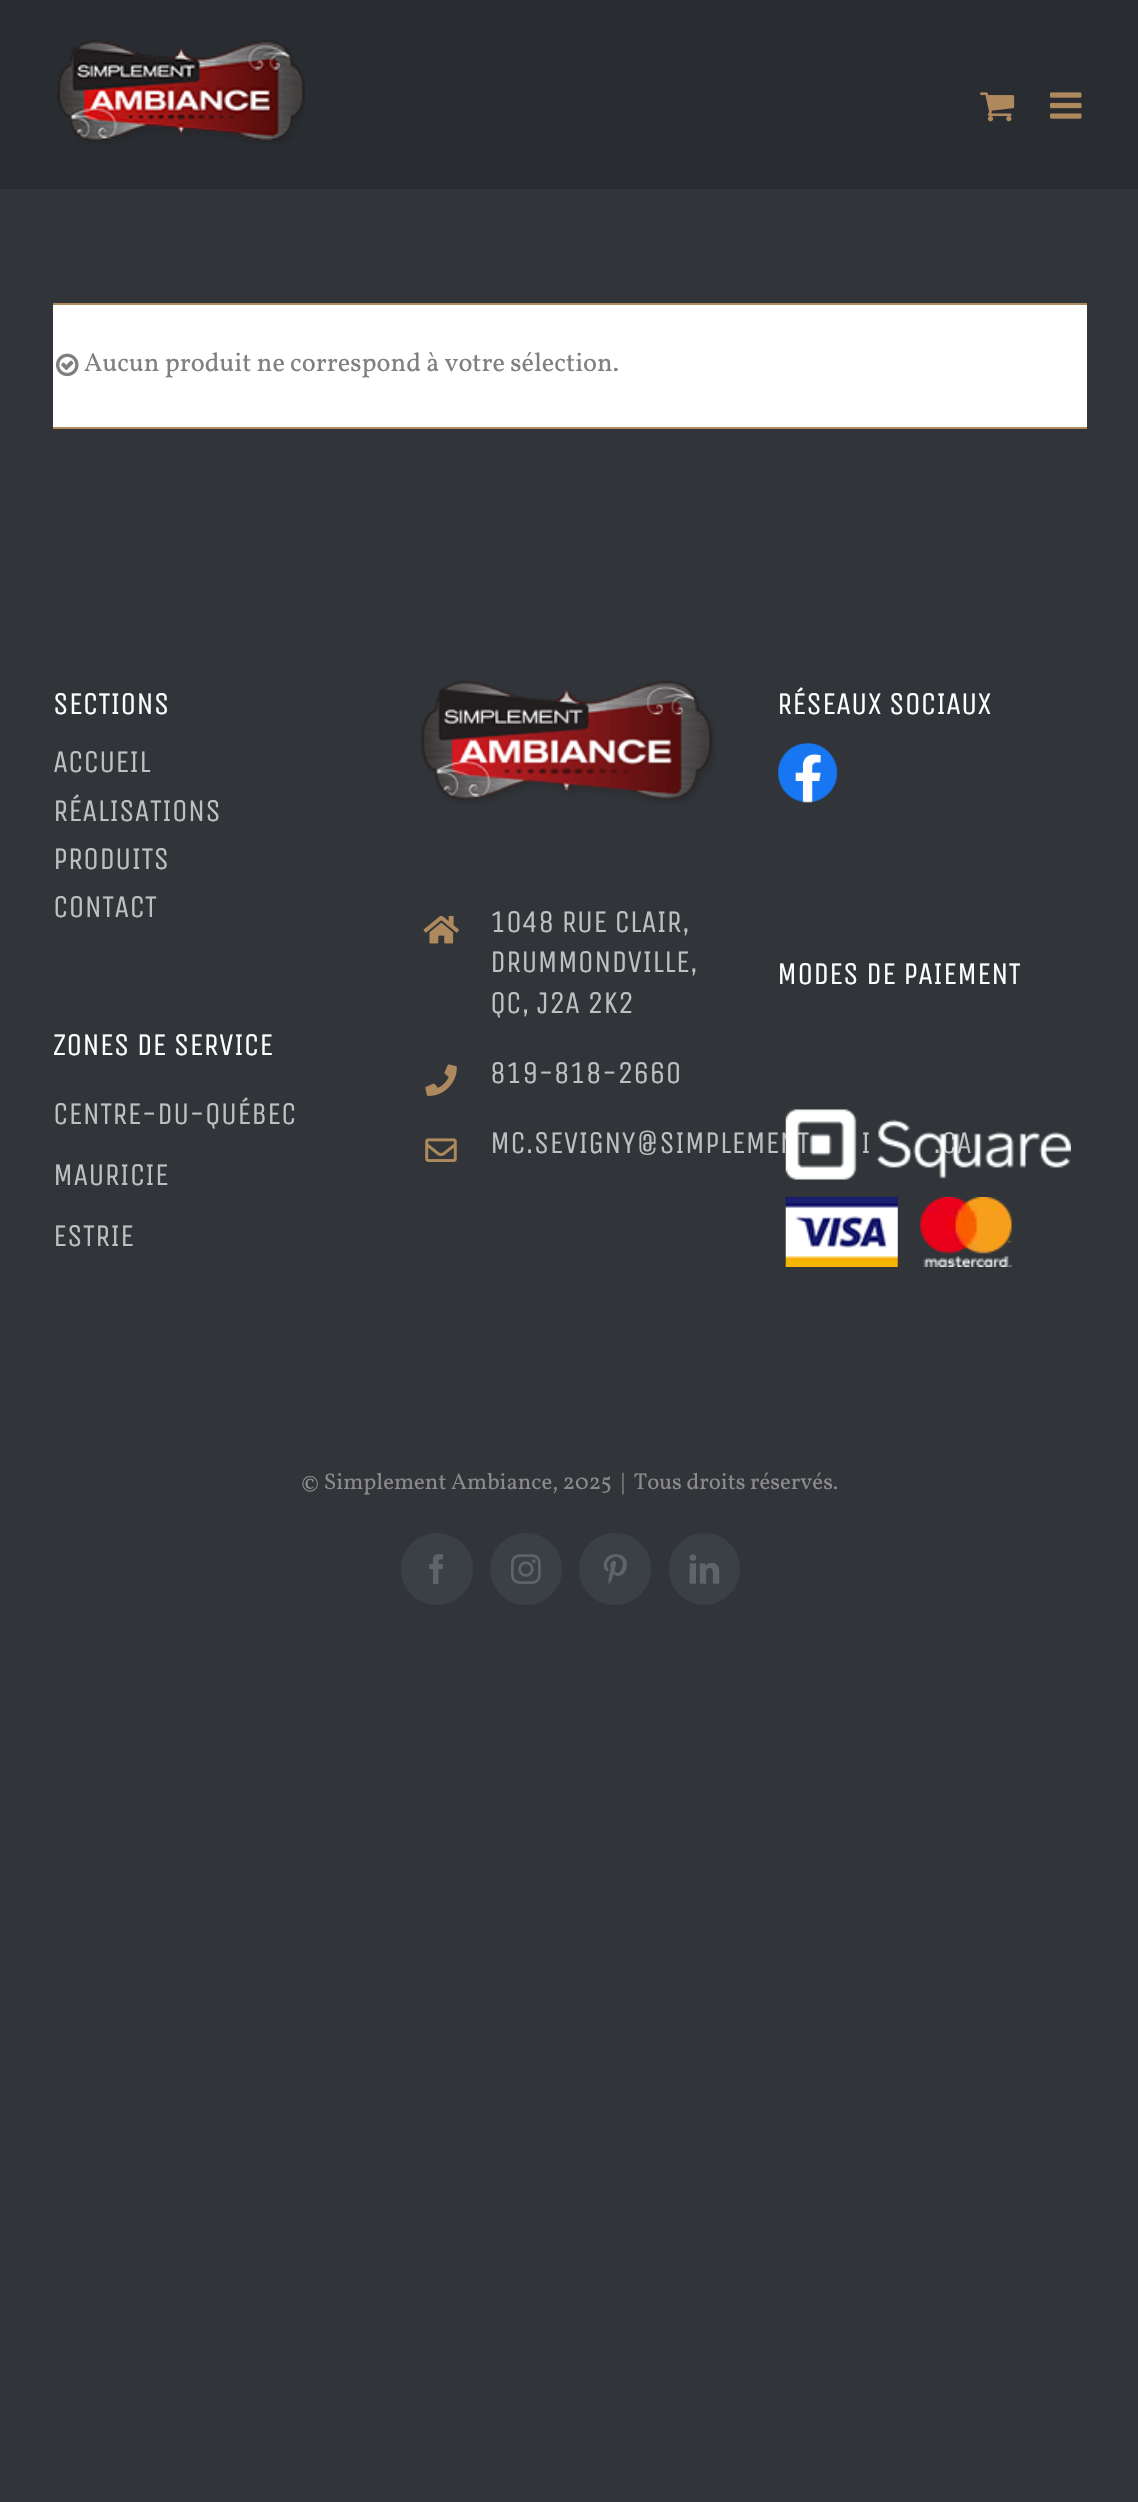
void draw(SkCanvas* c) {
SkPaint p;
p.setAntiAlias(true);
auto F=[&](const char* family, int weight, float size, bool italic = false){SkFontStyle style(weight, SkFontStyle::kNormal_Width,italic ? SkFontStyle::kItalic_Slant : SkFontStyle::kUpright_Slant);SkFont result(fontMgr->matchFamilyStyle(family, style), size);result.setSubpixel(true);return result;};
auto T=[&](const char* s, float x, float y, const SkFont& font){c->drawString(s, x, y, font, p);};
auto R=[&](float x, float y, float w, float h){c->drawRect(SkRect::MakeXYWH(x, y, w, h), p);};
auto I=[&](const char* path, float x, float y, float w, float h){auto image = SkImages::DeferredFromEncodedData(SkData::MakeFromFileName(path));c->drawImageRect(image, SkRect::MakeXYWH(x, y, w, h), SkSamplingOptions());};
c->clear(0xff313539);
p.setColor(0xff292c30);
R(0,0,1138,189);
I("1.png",57,40,248,104);
I("2.png",980,92,35,30);
I("3.png",1050,92,32,27);
p.setColor(0xffffffff);
R(53,305,1034,122);
p.setColor(0xffae895d);
R(53,303,1034,2);
R(53,427,1034,2);
I("4.png",56,353,23,24);
auto f1 = F("Vollkorn",400,26.25);
p.setColor(0xff808080);
T("Aucun produit ne correspond à votre sélection.",84,371,f1);
auto f2 = F("Unica One",400,31.5);
p.setColor(0xffffffff);
T("SECTIONS",53,714,f2);
p.setColor(0xffbfbfbf);
T("ACCUEIL",53,772,f2);
T("RÉALISATIONS",53,821,f2);
T("PRODUITS",53,869,f2);
T("CONTACT",53,917,f2);
p.setColor(0xffffffff);
T("ZONES DE SERVICE",53,1055,f2);
p.setColor(0xffbfbfbf);
T("CENTRE-DU-QUÉBEC",53,1124,f2);
T("MAURICIE",53,1185,f2);
T("ESTRIE",53,1246,f2);
p.setColor(0xffffffff);
T("RÉSEAUX SOCIAUX",777,714,f2);
I("5.png",778,743,60,60);
T("MODES DE PAIEMENT",777,984,f2);
p.setColor(0xffbfbfbf);
T("MC.SEVIGNY@SIMPLEMENT",490,1153,f2);
T("I",861,1153,f2);
T(".CA",933,1153,f2);
I("6.png",785,1109,286,71);
I("7.png",785,1197,113,70);
I("8.png",920,1197,92,70);
I("9.png",420,680,296,124);
I("10.png",423,915,36,29);
T("1048 RUE CLAIR,",490,932,f2);
T("DRUMMONDVILLE,",490,972,f2);
T("QC, J2A 2K2",490,1013,f2);
I("11.png",425,1064,32,32);
T("819-818-2660",490,1083,f2);
I("12.png",425,1138,32,24);
auto f3 = F("Vollkorn",400,22.75);
p.setColor(0xff8c8989);
T("© Simplement Ambiance, 2025  |  Tous droits réservés.",301,1489,f3);
p.setColor(0xff3b4045);
c->drawCircle(437,1569,35,p);
p.setStroke(true);
p.setStrokeWidth(2);
c->drawCircle(437,1569,35,p);
I("13.png",429,1554,14,30);
p.setStroke(false);
c->drawCircle(526,1569,35,p);
p.setStroke(true);
c->drawCircle(526,1569,35,p);
I("14.png",511,1554,30,30);
p.setStroke(false);
c->drawCircle(615,1569,35,p);
p.setStroke(true);
c->drawCircle(615,1569,35,p);
I("15.png",603,1554,24,30);
p.setStroke(false);
c->drawRoundRect(SkRect::MakeXYWH(670,1534,69,70),34.5,34.5,p);
p.setStroke(true);
c->drawRoundRect(SkRect::MakeXYWH(670,1534,69,70),34.5,34.5,p);
I("16.png",689,1554,31,30);
}
